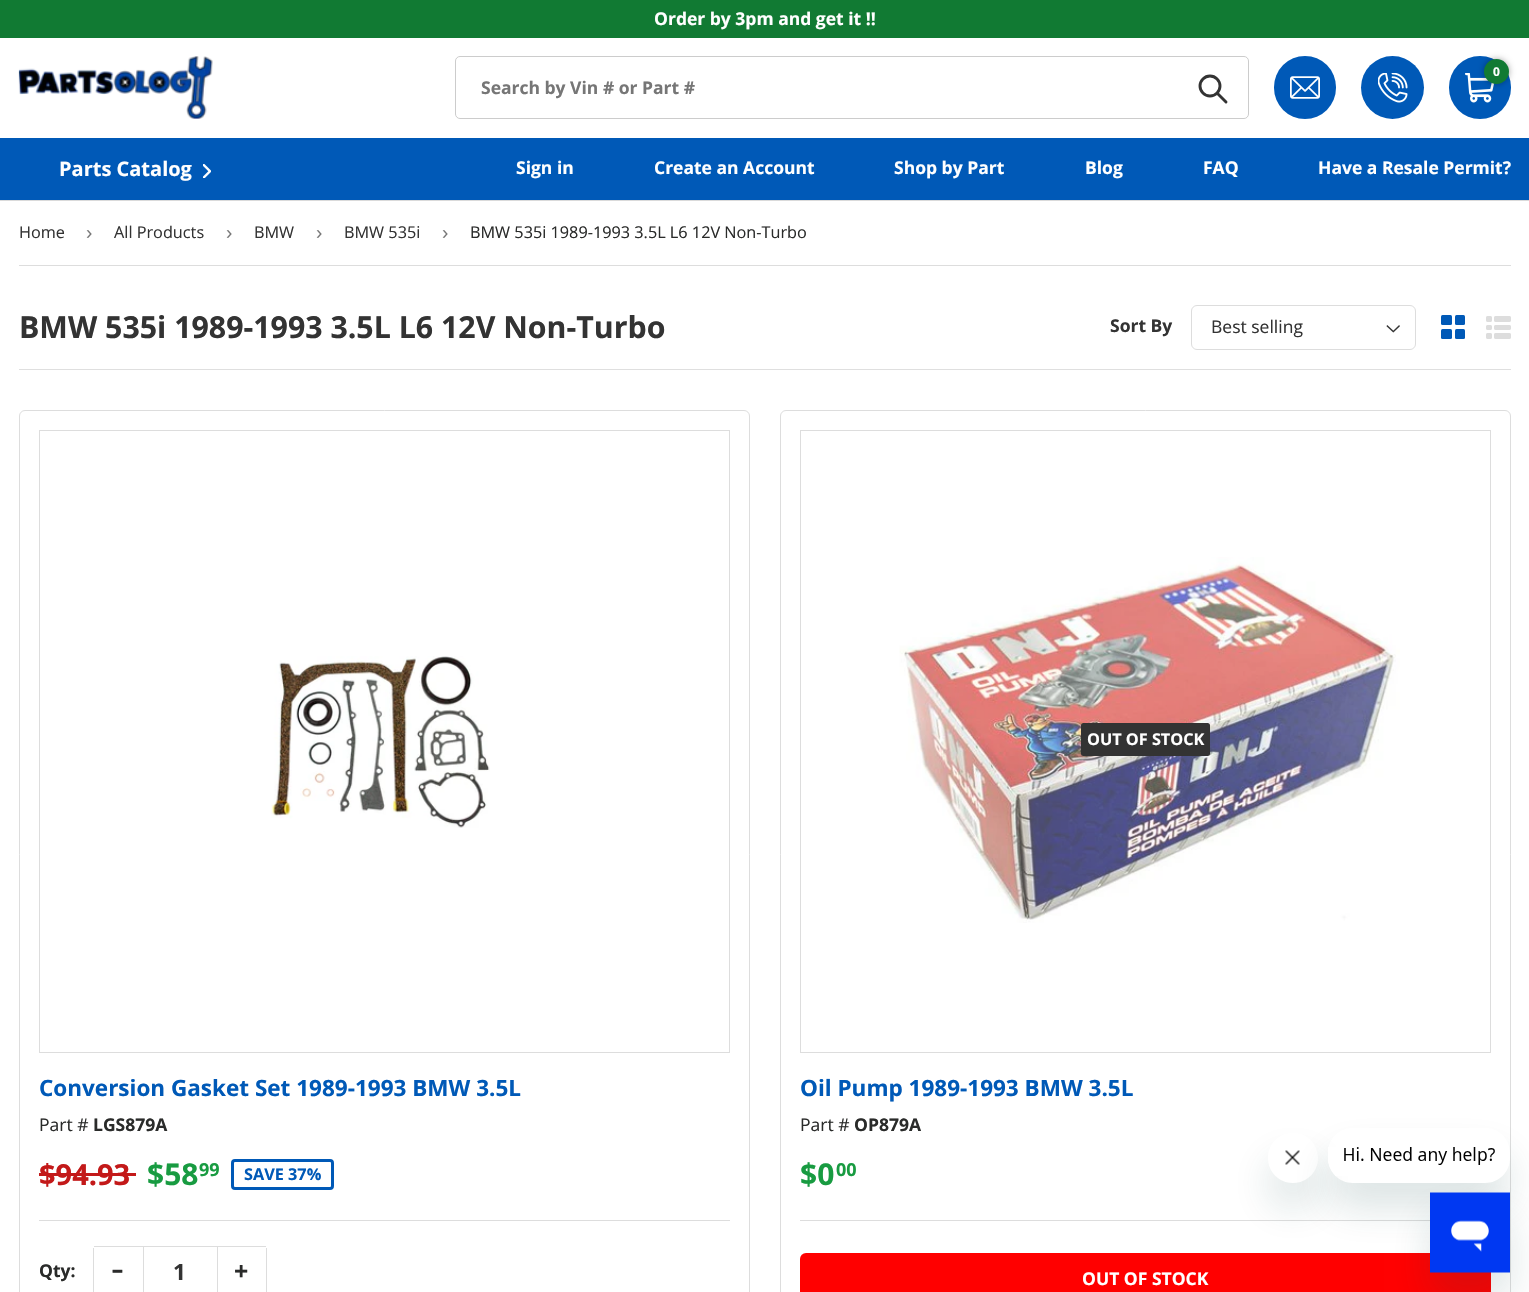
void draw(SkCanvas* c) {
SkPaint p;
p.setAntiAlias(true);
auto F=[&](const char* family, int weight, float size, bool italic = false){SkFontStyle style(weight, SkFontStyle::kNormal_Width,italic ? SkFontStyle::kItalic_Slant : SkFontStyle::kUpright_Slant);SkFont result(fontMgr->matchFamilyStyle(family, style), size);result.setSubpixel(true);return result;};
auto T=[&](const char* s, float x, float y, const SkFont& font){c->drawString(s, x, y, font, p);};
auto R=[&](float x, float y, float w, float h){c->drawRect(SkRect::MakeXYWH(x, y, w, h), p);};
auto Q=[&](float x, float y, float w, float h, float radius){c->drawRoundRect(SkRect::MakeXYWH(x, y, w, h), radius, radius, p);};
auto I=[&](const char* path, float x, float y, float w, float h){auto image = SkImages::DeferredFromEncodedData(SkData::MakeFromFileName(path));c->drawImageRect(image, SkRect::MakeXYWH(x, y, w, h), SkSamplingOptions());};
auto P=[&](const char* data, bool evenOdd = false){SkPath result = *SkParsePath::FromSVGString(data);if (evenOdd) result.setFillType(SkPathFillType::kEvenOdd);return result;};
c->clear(0xffffffff);
p.setColor(0xff117a33);
R(0,0,1529,38);
auto f1 = F("Open Sans",700,17.5);
p.setColor(0xffffffff);
T("Order by 3pm and get it !!",654,25,f1);
p.setColor(0xffdadada);
R(0,200,1529,1);
I("1.png",18,56,195,63);
p.setColor(0xff0059b7);
Q(1274,56,62,63,31);
I("2.png",1290,76,30,23);
c->drawCircle(1392.5,87.5,31.5,p);
I("3.png",1378,73,30,30);
Q(1449,56,62,63,31);
I("4.png",1465,73,30,30);
p.setColor(0x59000000);
p.setMaskFilter(SkMaskFilter::MakeBlur(kNormal_SkBlurStyle, 3));
c->drawRoundRect(SkRect::MakeXYWH(1484,59,25,25),12.5,12.5,p);
p.setMaskFilter(nullptr);
p.setColor(0xff117a33);
c->drawCircle(1496.5,71.5,12.5,p);
auto f2 = F("Open Sans",700,12);
p.setColor(0xffffffff);
T("0",1493,76,f2);
p.setStroke(true);
p.setStrokeWidth(1);
p.setColor(0xffcccccc);
c->drawRoundRect(SkRect::MakeXYWH(455.5,56.5,793,62),4.5,4.5,p);
p.setStroke(false);
p.setColor(0xff767676);
T("Search by Vin # or Part #",481,94,f1);
p.setStroke(true);
p.setStrokeWidth(2.9);
p.setColor(0xff333333);
c->drawCircle(1210,86,10,p);
p.setStrokeCap(SkPaint::kRound_Cap);
p.setStrokeJoin(SkPaint::kRound_Join);
c->drawPath(P("M1218 94l8 8"),p);
p.setStroke(false);
p.setColor(0xff0059b7);
R(0,138,1529,62);
auto f3 = F("Open Sans",700,20);
p.setColor(0xffffffff);
T("Parts Catalog",59,176,f3);
I("5.png",203,164,8,14);
T("Sign in",516,174,f1);
T("Create an Account",654,174,f1);
T("Shop by Part",894,174,f1);
T("Blog",1085,174,f1);
T("FAQ",1203,174,f1);
T("Have a Resale Permit?",1318,174,f1);
p.setColor(0xffdddddd);
R(19,265,1492,1);
auto f4 = F("Open Sans",400,16.25);
p.setColor(0xff333333);
T("Home",19,238,f4);
auto f5 = F("Liberation Sans",400,19);
p.setColor(0xff767676);
T("›",86,239,f5);
p.setColor(0xff333333);
T("All Products",114,238,f4);
p.setColor(0xff767676);
T("›",226,239,f5);
p.setColor(0xff333333);
T("BMW",254,238,f4);
p.setColor(0xff767676);
T("›",316,239,f5);
p.setColor(0xff333333);
T("BMW 535i",344,238,f4);
p.setColor(0xff767676);
T("›",442,239,f5);
p.setColor(0xff2a2b2a);
T("BMW 535i 1989-1993 3.5L L6 12V Non-Turbo",470,238,f4);
p.setColor(0xffdfdfdf);
R(19,369,1492,1);
auto f6 = F("Open Sans",700,30.3);
p.setColor(0xff333333);
T("BMW 535i 1989-1993 3.5L L6 12V Non-Turbo",19,338,f6);
T("Sort By",1110,332,f1);
I("6.png",1386,325,14,8);
p.setStroke(true);
p.setStrokeWidth(1);
p.setStrokeCap(SkPaint::kButt_Cap);
p.setStrokeJoin(SkPaint::kMiter_Join);
p.setColor(0xffdddddd);
c->drawRoundRect(SkRect::MakeXYWH(1191.5,305.5,224,44),5.5,5.5,p);
auto f7 = F("Open Sans",400,17.5);
p.setStroke(false);
p.setColor(0xff333333);
T("Best selling",1211,333,f7);
p.setColor(0xff0059b7);
Q(1441,315,11,10,1.5);
Q(1455,315,10,10,1.5);
Q(1441,329,11,10,1.5);
Q(1455,329,10,10,1.5);
I("7.png",1486,316,25,23);
p.setStroke(true);
p.setColor(0xffdddddd);
c->drawRoundRect(SkRect::MakeXYWH(19.5,410.5,730,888),5.5,5.5,p);
c->drawRect(SkRect::MakeXYWH(39.5,430.5,690,622),p);
I("8.png",271,656,219,172);
auto f8 = F("Open Sans",700,22.5);
p.setStroke(false);
p.setColor(0xff0059b7);
T("Conversion Gasket Set 1989-1993 BMW 3.5L",39,1096,f8);
p.setColor(0xff2a2b2a);
T("Part #",39,1131,f7);
T("LGS879A",93,1131,f1);
p.setColor(0xffdddddd);
R(39,1220,691,1);
auto f9 = F("Open Sans",700,29);
p.setColor(0xffc31919);
T("$94.93",39,1185,f9);
R(39,1173,97,3);
auto f10 = F("Open Sans",700,30);
p.setColor(0xff189b41);
T("$58",147,1185,f10);
auto f11 = F("Open Sans",700,18);
T("99",199,1176,f11);
p.setStroke(true);
p.setStrokeWidth(3);
p.setColor(0xff0059b7);
c->drawRoundRect(SkRect::MakeXYWH(232.5,1160.5,100,28),2.5,2.5,p);
auto f12 = F("Open Sans",700,16.25);
p.setStroke(false);
T("SAVE 37%",244,1180,f12);
p.setColor(0xff2a2b2a);
T("Qty:",39,1277,f1);
p.setColor(0xffdddddd);
R(94,1246,49,1);
R(93,1248,1,44);
auto f13 = F("Open Sans",400,40);
p.setColor(0xff2a2b2a);
T("-",111,1282,f13);
p.setStroke(true);
p.setStrokeWidth(1);
p.setColor(0xffdddddd);
c->drawRect(SkRect::MakeXYWH(143.5,1246.5,74,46),p);
p.setStroke(false);
p.setColor(0xff333333);
T("1",173,1280,f8);
p.setColor(0xffdddddd);
R(218,1246,48,1);
R(266,1248,1,44);
auto f14 = F("Open Sans",700,25);
p.setColor(0xff2a2b2a);
T("+",234,1280,f14);
p.setStroke(true);
p.setColor(0xffdddddd);
c->drawRoundRect(SkRect::MakeXYWH(780.5,410.5,730,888),5.5,5.5,p);
c->drawRect(SkRect::MakeXYWH(800.5,430.5,690,622),p);
I("9.png",899,557,501,366);
p.setStroke(false);
p.setColor(0xff333333);
Q(1081,723,129,33,2.5);
p.setColor(0xffffffff);
T("OUT OF STOCK",1087,745,f12);
p.setColor(0xff0059b7);
T("Oil Pump 1989-1993 BMW 3.5L",800,1096,f8);
p.setColor(0xff2a2b2a);
T("Part #",800,1131,f7);
T("OP879A",854,1131,f1);
p.setColor(0xffdddddd);
R(800,1220,630,1);
p.setColor(0xff189b41);
T("$0",800,1185,f10);
T("00",836,1176,f11);
p.setColor(0xffff0000);
Q(800,1253,691,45,6);
p.setColor(0xffffffff);
T("OUT OF STOCK",1082,1285,f1);
c->save();
c->clipPath(P("M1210 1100h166v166h-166zm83 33c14 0 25 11 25 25c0 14-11 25-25 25c-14 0-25-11-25-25c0-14 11-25 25-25z",true),true);
p.setColor(0x2617494d);
p.setMaskFilter(SkMaskFilter::MakeBlur(kNormal_SkBlurStyle, 19));
c->drawRoundRect(SkRect::MakeXYWH(1268,1158,50,50),25,25,p);
p.setMaskFilter(nullptr);
c->restore();
I("11.png",1285,1150,15,33);
c->save();
c->clipPath(P("M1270 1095h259v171h-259zm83 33h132c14 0 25 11 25 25v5c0 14-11 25-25 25h-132c-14 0-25-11-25-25v-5c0-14 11-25 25-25z",true),true);
p.setMaskFilter(SkMaskFilter::MakeBlur(kNormal_SkBlurStyle, 19));
c->drawRoundRect(SkRect::MakeXYWH(1328,1153,182,55),25,25,p);
p.setMaskFilter(nullptr);
c->restore();
I("10.png",1328,1147,167,29);
p.setMaskFilter(SkMaskFilter::MakeBlur(kNormal_SkBlurStyle, 19));
c->drawRect(SkRect::MakeXYWH(1430,1218,80,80),p);
p.setMaskFilter(nullptr);
I("12.png",1430,1192,80,81);
}
